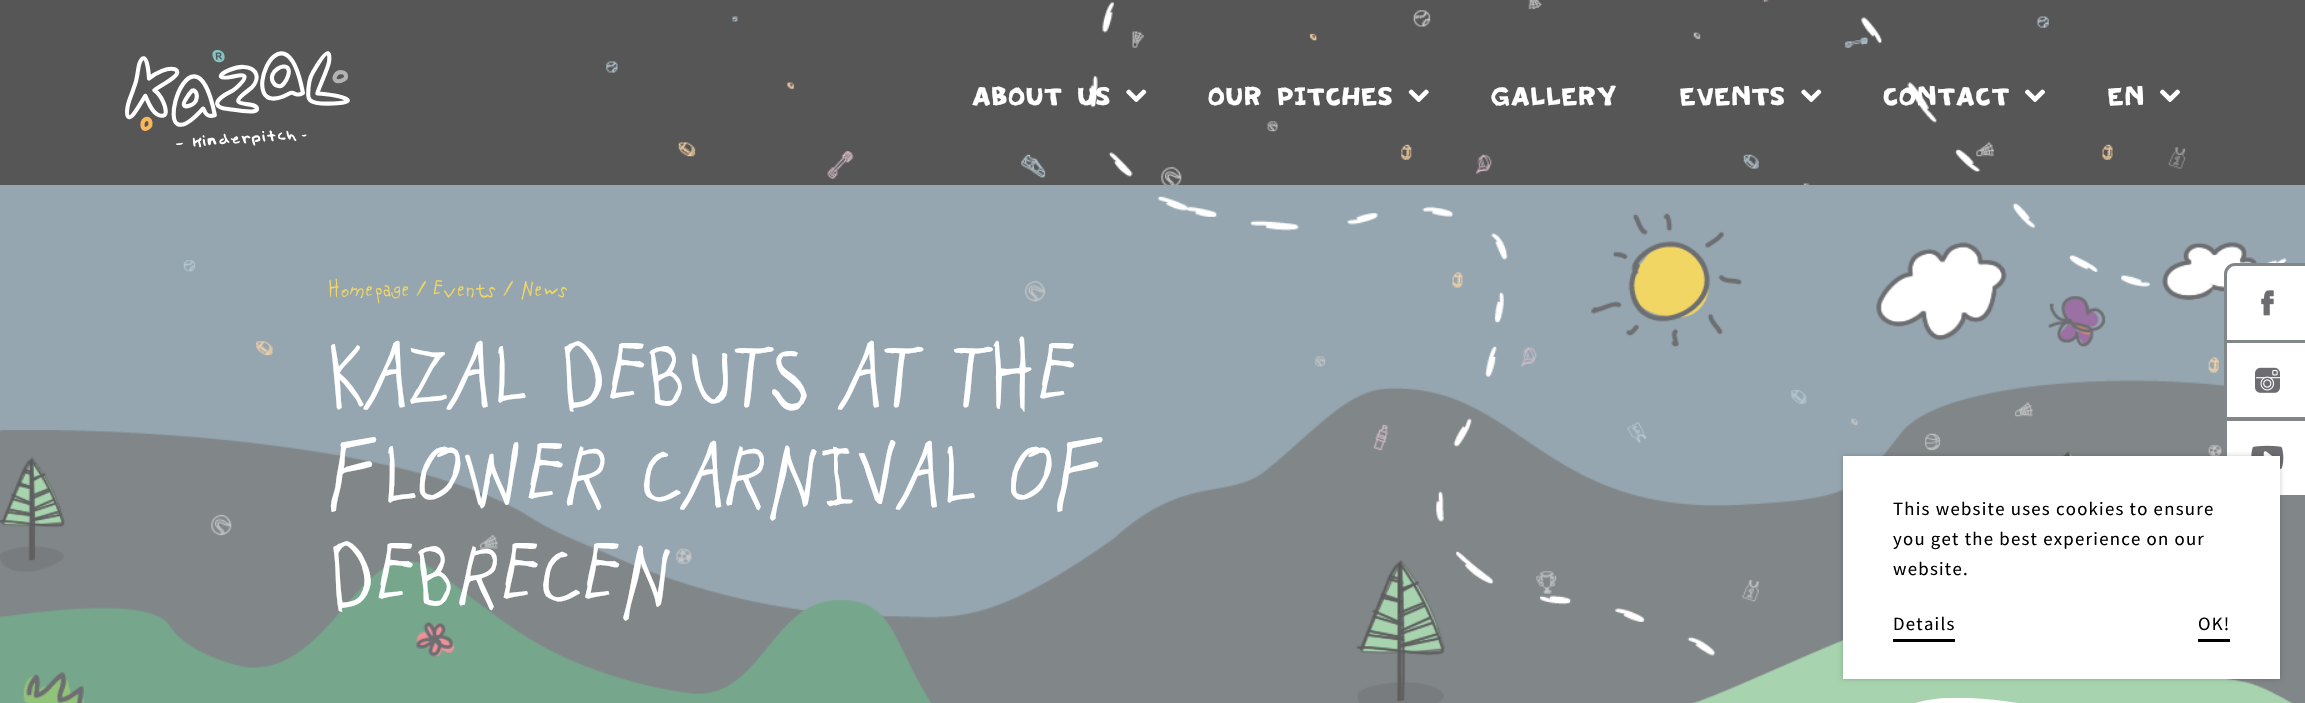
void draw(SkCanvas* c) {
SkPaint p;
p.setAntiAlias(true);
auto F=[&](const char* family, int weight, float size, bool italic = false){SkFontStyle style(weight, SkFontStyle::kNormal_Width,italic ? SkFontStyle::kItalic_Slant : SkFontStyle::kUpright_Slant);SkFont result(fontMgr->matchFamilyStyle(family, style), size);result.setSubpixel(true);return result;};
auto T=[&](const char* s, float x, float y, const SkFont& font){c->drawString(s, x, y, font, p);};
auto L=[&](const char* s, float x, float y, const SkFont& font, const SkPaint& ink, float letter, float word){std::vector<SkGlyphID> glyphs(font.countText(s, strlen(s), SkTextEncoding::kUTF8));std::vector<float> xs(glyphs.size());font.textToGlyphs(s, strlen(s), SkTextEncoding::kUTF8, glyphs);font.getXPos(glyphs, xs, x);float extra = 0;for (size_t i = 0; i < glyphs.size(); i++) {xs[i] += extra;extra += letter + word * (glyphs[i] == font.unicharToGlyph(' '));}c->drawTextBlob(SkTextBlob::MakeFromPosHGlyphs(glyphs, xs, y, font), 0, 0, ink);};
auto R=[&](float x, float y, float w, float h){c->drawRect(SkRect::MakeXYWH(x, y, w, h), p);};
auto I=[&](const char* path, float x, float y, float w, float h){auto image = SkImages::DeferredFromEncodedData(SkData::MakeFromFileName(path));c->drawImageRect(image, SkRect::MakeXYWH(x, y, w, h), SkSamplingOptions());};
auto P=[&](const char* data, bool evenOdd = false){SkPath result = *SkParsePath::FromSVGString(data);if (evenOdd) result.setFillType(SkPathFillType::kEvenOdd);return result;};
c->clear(0xff95a6b0);
p.setColor(0xff575656);
R(0,0,2305,185);
I("1.png",606,0,1580,185);
I("2.png",125,50,225,98);
I("3.png",1088,2,893,175);
auto f1 = F("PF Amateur",400,35);
p.setColor(0xffffffff);
L("ABOUT US",972,105,f1,p,1.25,0);
I("4.png",1126,89,21,13);
L("OUR PITCHES",1208,105,f1,p,1.25,0);
I("5.png",1408,89,21,13);
L("GALLERY",1491,105,f1,p,1.25,0);
L("EVENTS",1680,105,f1,p,1.25,0);
I("4.png",1801,89,21,13);
L("CONTACT",1883,105,f1,p,1.25,0);
I("6.png",2025,89,20,13);
L("EN",2108,105,f1,p,1.25,0);
I("6.png",2160,89,20,13);
I("7.png",0,213,2305,490);
auto f2 = F("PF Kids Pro",400,25);
p.setColor(0xfff1d664);
T("Homepage",328,296,f2);
T("/",416,296,f2);
T("Events",433,296,f2);
T("/",503,296,f2);
T("News",521,296,f2);
auto f3 = F("PF Kids Pro",400,100);
p.setColor(0xffffffff);
T("KAZAL DEBUTS AT THE",328,406,f3);
T("FLOWER CARNIVAL OF",328,506,f3);
T("DEBRECEN",328,606,f3);
I("8.png",1157,196,1130,460);
c->save();
c->clipRect(SkRect::MakeXYWH(1850,698,285,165));
c->drawPath(P("M2071 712c-59-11-116-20-152-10c-24 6-29 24-40 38c-14 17-33 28-28 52c1 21 15 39 43 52c14 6 36 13 57 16c24 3 49 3 83 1c25-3 40-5 75-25c43-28 35-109-38-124z",true),p);
c->restore();
c->drawPath(P("M2235 264.5h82.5v77h-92v-67.5c0-5 4.5-9.5 9.5-9.5z"),p);
p.setStroke(true);
p.setStrokeWidth(3);
p.setColor(0xff818689);
c->drawPath(P("M2235 264.5h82.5v77h-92v-67.5c0-5 4.5-9.5 9.5-9.5z"),p);
I("9.png",2261,290,13,26);
p.setStroke(false);
p.setColor(0xffffffff);
c->drawRect(SkRect::MakeXYWH(2225.5,341.5,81,77),p);
p.setStroke(true);
p.setColor(0xff818689);
c->drawRect(SkRect::MakeXYWH(2225.5,341.5,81,77),p);
I("10.png",2255,367,25,26);
p.setStroke(false);
p.setColor(0xffffffff);
c->drawRect(SkRect::MakeXYWH(2225.5,419.5,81,77),p);
p.setStroke(true);
p.setColor(0xff818689);
c->drawRect(SkRect::MakeXYWH(2225.5,419.5,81,77),p);
I("11.png",2251,445,33,24);
p.setStroke(false);
p.setColor(0x33000000);
p.setMaskFilter(SkMaskFilter::MakeBlur(kNormal_SkBlurStyle, 2.5));
c->drawRect(SkRect::MakeXYWH(1843,456,437,223),p);
p.setMaskFilter(nullptr);
p.setColor(0xffffffff);
R(1843,456,437,223);
auto f4 = F("Source Sans Pro",400,18.75);
p.setColor(0xff000000);
L("This website uses cookies to ensure",1893,515,f4,p,1.25,0);
L("you get the best experience on our",1893,545,f4,p,1.25,0);
L("website.",1893,575,f4,p,1.25,0);
R(1893,639,62,3);
L("Details",1893,630,f4,p,1.25,0);
R(2198,639,32,3);
L("OK!",2198,630,f4,p,1.25,0);
}
